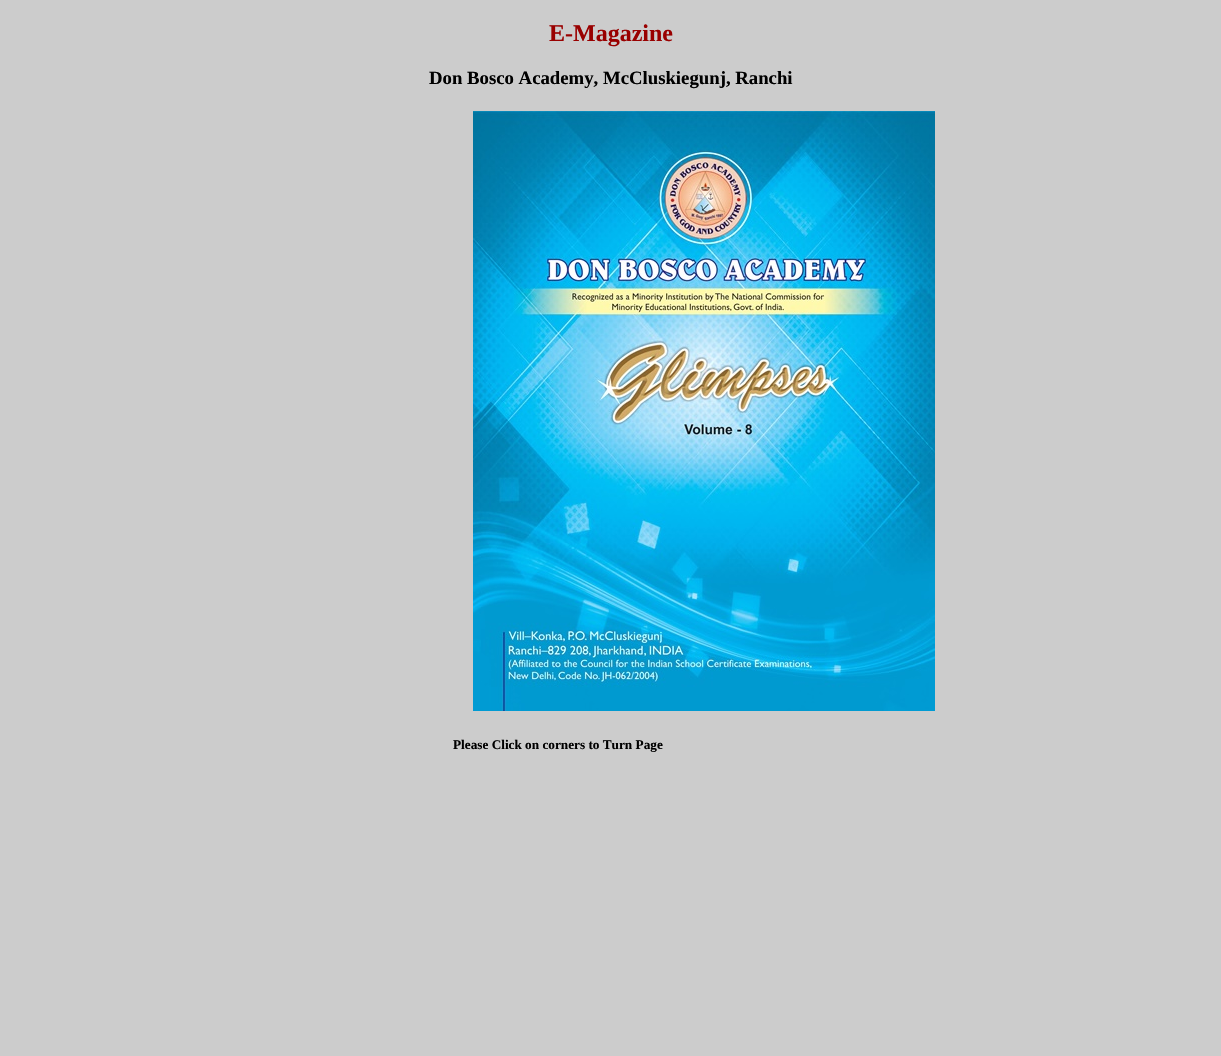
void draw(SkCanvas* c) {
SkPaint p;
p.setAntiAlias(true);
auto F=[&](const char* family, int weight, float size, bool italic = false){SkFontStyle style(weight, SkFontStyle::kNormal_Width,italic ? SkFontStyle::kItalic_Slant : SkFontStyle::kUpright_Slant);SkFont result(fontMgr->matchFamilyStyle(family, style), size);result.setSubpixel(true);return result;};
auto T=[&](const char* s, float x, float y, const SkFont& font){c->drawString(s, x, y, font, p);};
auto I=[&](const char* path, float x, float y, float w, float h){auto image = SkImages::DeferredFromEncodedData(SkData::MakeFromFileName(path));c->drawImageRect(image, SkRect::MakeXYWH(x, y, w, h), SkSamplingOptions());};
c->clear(0xffcccccc);
auto f1 = F("Liberation Serif",700,24);
p.setColor(0xff990000);
T("E-Magazine",549,41,f1);
auto f2 = F("Liberation Serif",700,18.75);
p.setColor(0xff000000);
T("Don Bosco Academy, McCluskiegunj, Ranchi",429,84,f2);
I("1.png",473,111,462,600);
auto f3 = F("Liberation Serif",700,13.25);
T("Please Click on corners to Turn Page",453,749,f3);
}
